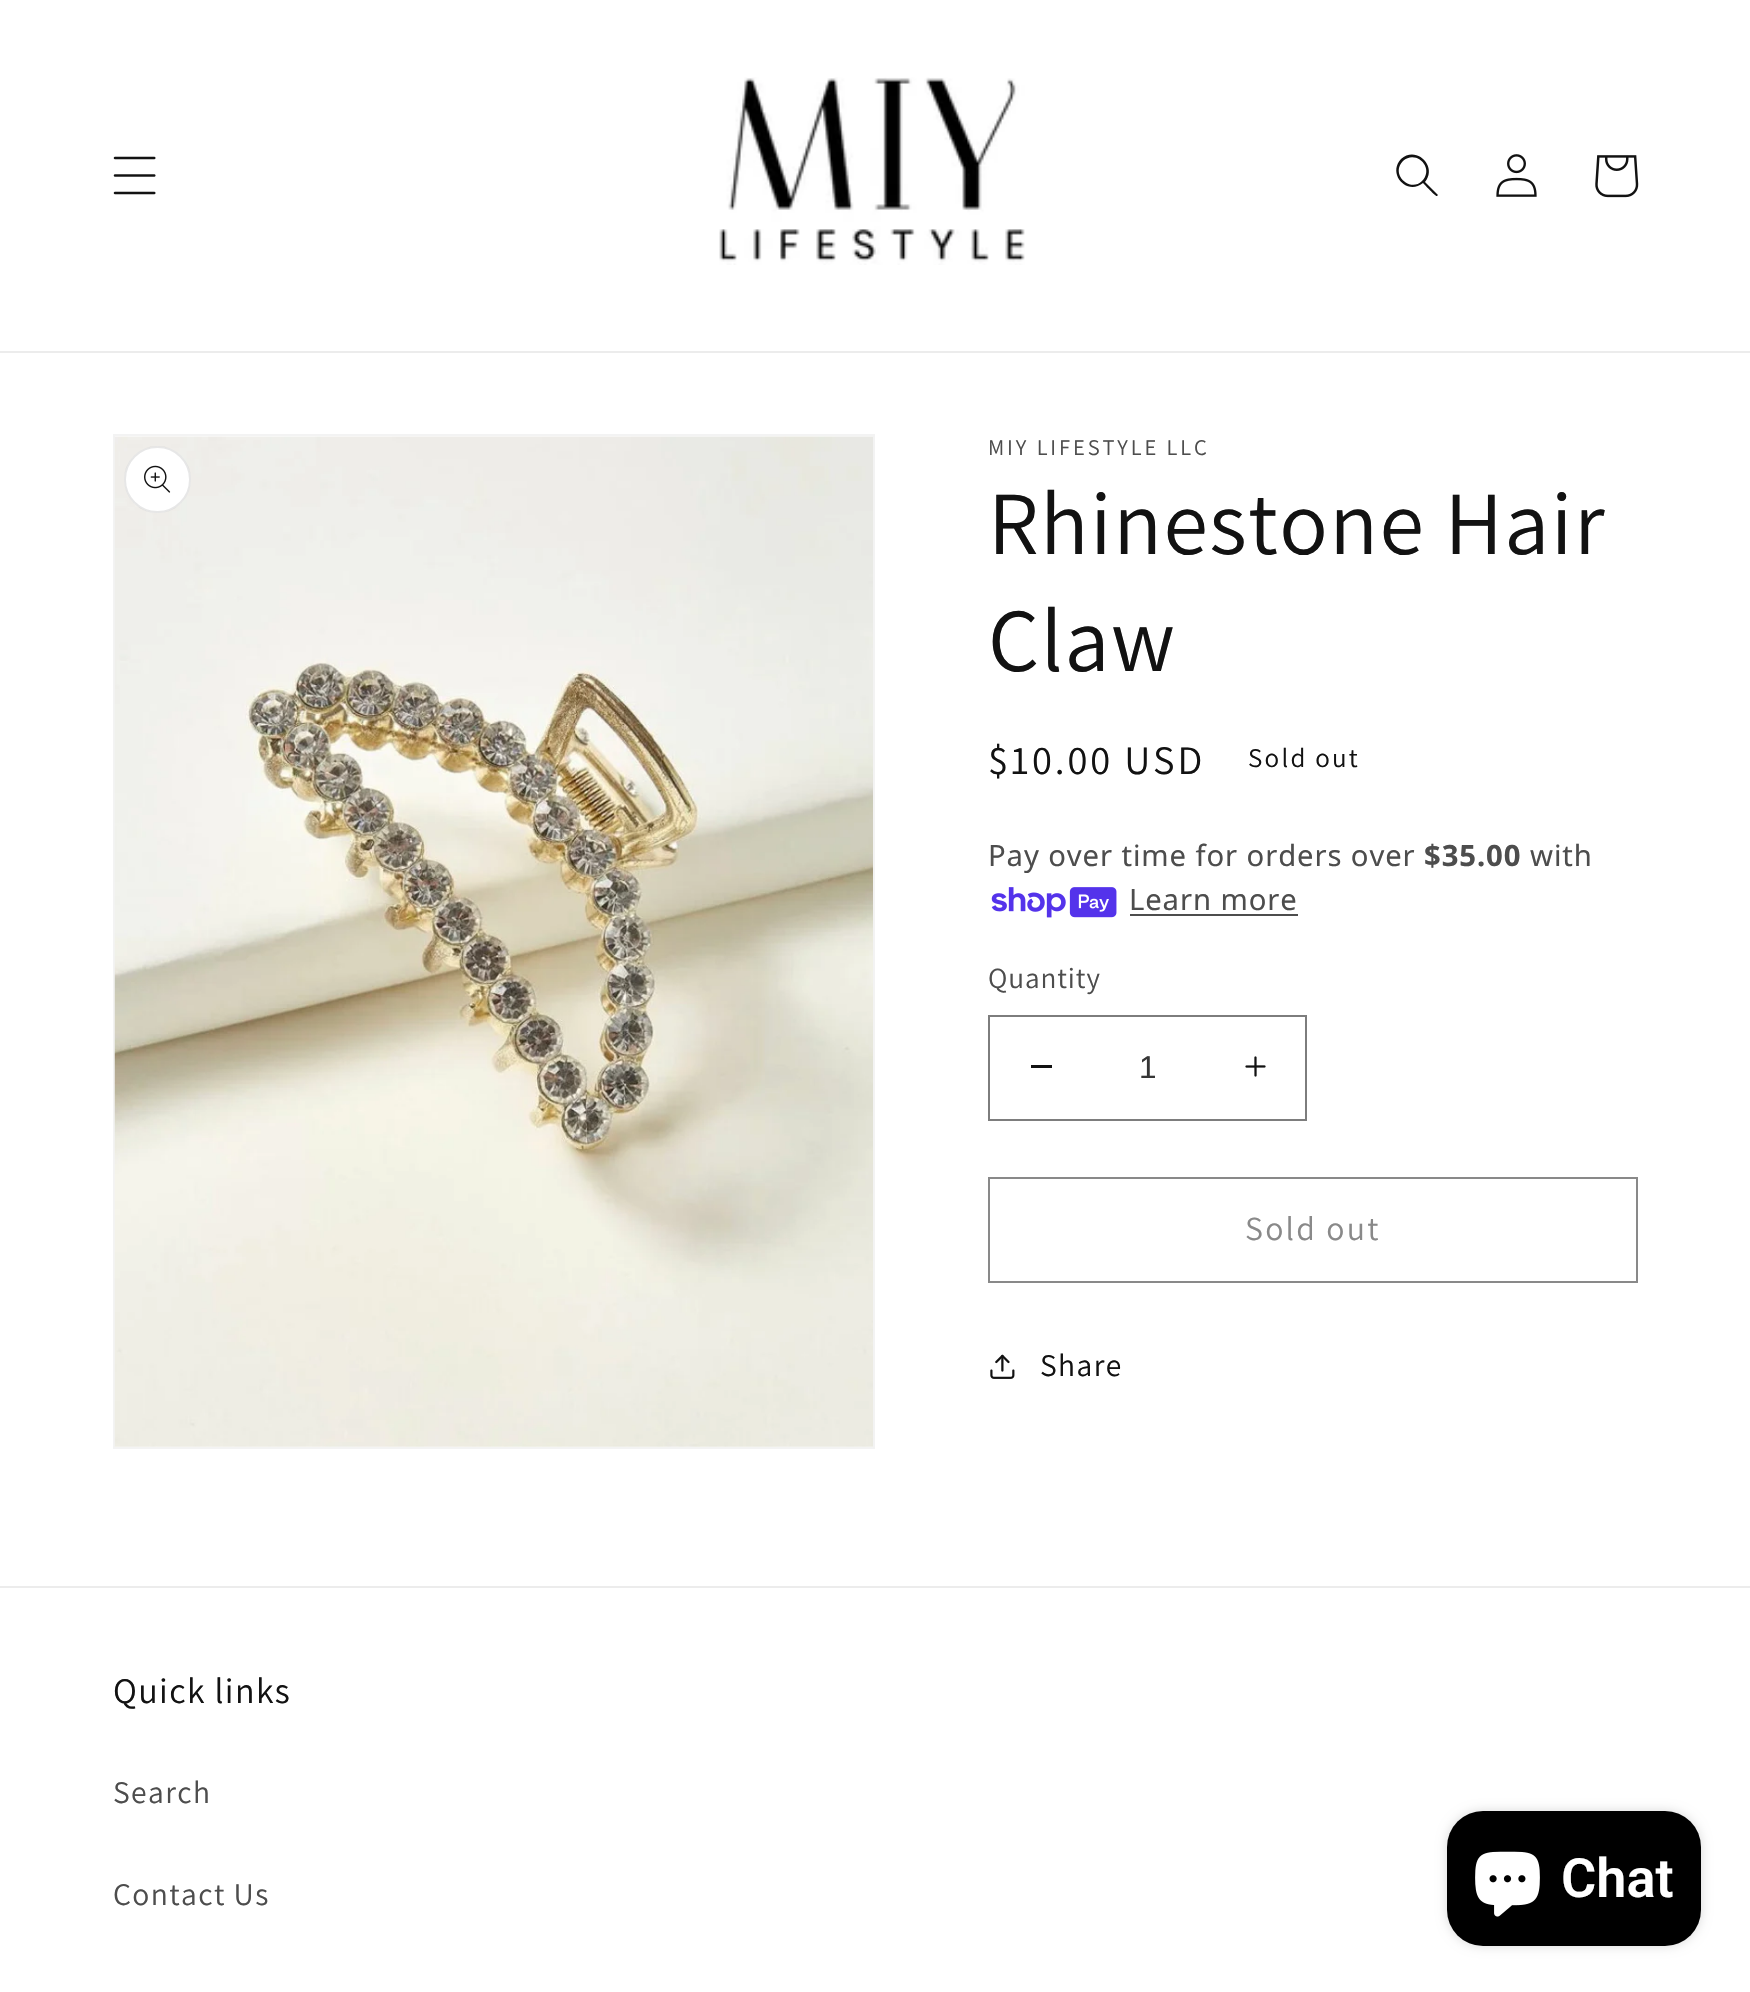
void draw(SkCanvas* c) {
SkPaint p;
p.setAntiAlias(true);
auto F=[&](const char* family, int weight, float size, bool italic = false){SkFontStyle style(weight, SkFontStyle::kNormal_Width,italic ? SkFontStyle::kItalic_Slant : SkFontStyle::kUpright_Slant);SkFont result(fontMgr->matchFamilyStyle(family, style), size);result.setSubpixel(true);return result;};
auto T=[&](const char* s, float x, float y, const SkFont& font){c->drawString(s, x, y, font, p);};
auto L=[&](const char* s, float x, float y, const SkFont& font, const SkPaint& ink, float letter, float word){std::vector<SkGlyphID> glyphs(font.countText(s, strlen(s), SkTextEncoding::kUTF8));std::vector<float> xs(glyphs.size());font.textToGlyphs(s, strlen(s), SkTextEncoding::kUTF8, glyphs);font.getXPos(glyphs, xs, x);float extra = 0;for (size_t i = 0; i < glyphs.size(); i++) {xs[i] += extra;extra += letter + word * (glyphs[i] == font.unicharToGlyph(' '));}c->drawTextBlob(SkTextBlob::MakeFromPosHGlyphs(glyphs, xs, y, font), 0, 0, ink);};
auto R=[&](float x, float y, float w, float h){c->drawRect(SkRect::MakeXYWH(x, y, w, h), p);};
auto Q=[&](float x, float y, float w, float h, float radius){c->drawRoundRect(SkRect::MakeXYWH(x, y, w, h), radius, radius, p);};
auto I=[&](const char* path, float x, float y, float w, float h){auto image = SkImages::DeferredFromEncodedData(SkData::MakeFromFileName(path));c->drawImageRect(image, SkRect::MakeXYWH(x, y, w, h), SkSamplingOptions());};
auto P=[&](const char* data, bool evenOdd = false){SkPath result = *SkParsePath::FromSVGString(data);if (evenOdd) result.setFillType(SkPathFillType::kEvenOdd);return result;};
c->clear(0xffffffff);
p.setColor(0xffececec);
R(0,351,1750,2);
I("1.png",113,156,43,39);
I("2.png",719,77,306,188);
p.setColor(0xff121212);
c->drawPath(P("M1422 181c-12 12-32-7-19-20c13-12 32 7 19 20zm1 2c-16 13-36-9-22-24c15-14 37 7 24 23l13 13l-1 1c-1 1-12-11-14-13z",true),p);
I("3.png",1496,154,41,43);
I("4.png",1595,155,44,43);
p.setStroke(true);
p.setStrokeWidth(2);
p.setColor(0xfff3f3f3);
c->drawRect(SkRect::MakeXYWH(114,435,760,1013),p);
I("5.png",114,436,759,1011);
p.setStroke(false);
p.setColor(0xffffffff);
c->drawCircle(157.5,479.5,33.5,p);
p.setStroke(true);
p.setColor(0x1a121212);
c->drawCircle(157.5,479.5,32.5,p);
I("6.png",144,465,27,28);
auto f1 = F("Assistant",400,22.5);
p.setStroke(false);
p.setColor(0xff4d4d4d);
L("MIY LIFESTYLE LLC",988,455,f1,p,2.9,0);
auto f2 = F("Assistant",400,90);
p.setColor(0xff121212);
L("Rhinestone Hair",988,554,f2,p,1.4,0);
L("Claw",988,671,f2,p,1.4,0);
auto f3 = F("Assistant",400,40.5);
L("$10.00 USD",988,774,f3,p,2.9,0);
auto f4 = F("Assistant",400,27);
L("Sold out",1248,767,f4,p,2.25,0);
auto f5 = F("Noto Sans",400,29.25);
p.setColor(0xff4d4d4d);
L("Pay over time for orders over",988,866,f5,p,.9,0);
auto f6 = F("Noto Sans",700,29.25);
L("$35.00",1424,866,f6,p,.9,0);
L("with",1530,866,f5,p,.9,0);
I("7.png",991,887,126,31);
L("Learn more",1129,910,f5,p,.9,0);
R(1130,914,168,2);
auto f7 = F("Assistant",400,29.25);
L("Quantity",988,988,f7,p,.9,0);
p.setColor(0xff121212);
R(1031,1065,21,3);
I("8.png",1245,1056,21,21);
p.setStroke(true);
p.setColor(0xff7d7d7d);
c->drawRect(SkRect::MakeXYWH(989,1016,317,104),p);
auto f8 = F("Liberation Sans",400,31.5);
p.setStroke(false);
p.setColor(0xff363636);
T("1",1139,1078,f8);
p.setStroke(true);
p.setColor(0xff898989);
c->drawRect(SkRect::MakeXYWH(989,1178,648,104),p);
auto f9 = F("Assistant",400,33.75);
p.setStroke(false);
L("Sold out",1245,1240,f9,p,2.25,0);
I("9.png",990,1354,25,25);
auto f10 = F("Assistant",400,31.5);
p.setColor(0xff121212);
L("Share",1040,1376,f10,p,1.4,0);
p.setColor(0xffececec);
R(0,1586,1750,2);
auto f11 = F("Assistant",400,36);
p.setColor(0xff121212);
L("Quick links",113,1703,f11,p,1.4,0);
p.setColor(0xff4d4d4d);
L("Search",113,1803,f10,p,1.4,0);
L("Contact Us",113,1905,f10,p,1.4,0);
p.setColor(0x26000000);
p.setMaskFilter(SkMaskFilter::MakeBlur(kNormal_SkBlurStyle, 5.5));
c->drawRoundRect(SkRect::MakeXYWH(1447,1811,254,135),36,36,p);
p.setMaskFilter(nullptr);
p.setColor(0xff000000);
Q(1447,1811,254,135,36);
I("10.png",1475,1851,65,66);
auto f12 = F("Roboto",600,54);
p.setColor(0xffffffff);
T("Chat",1561,1897,f12);
}
